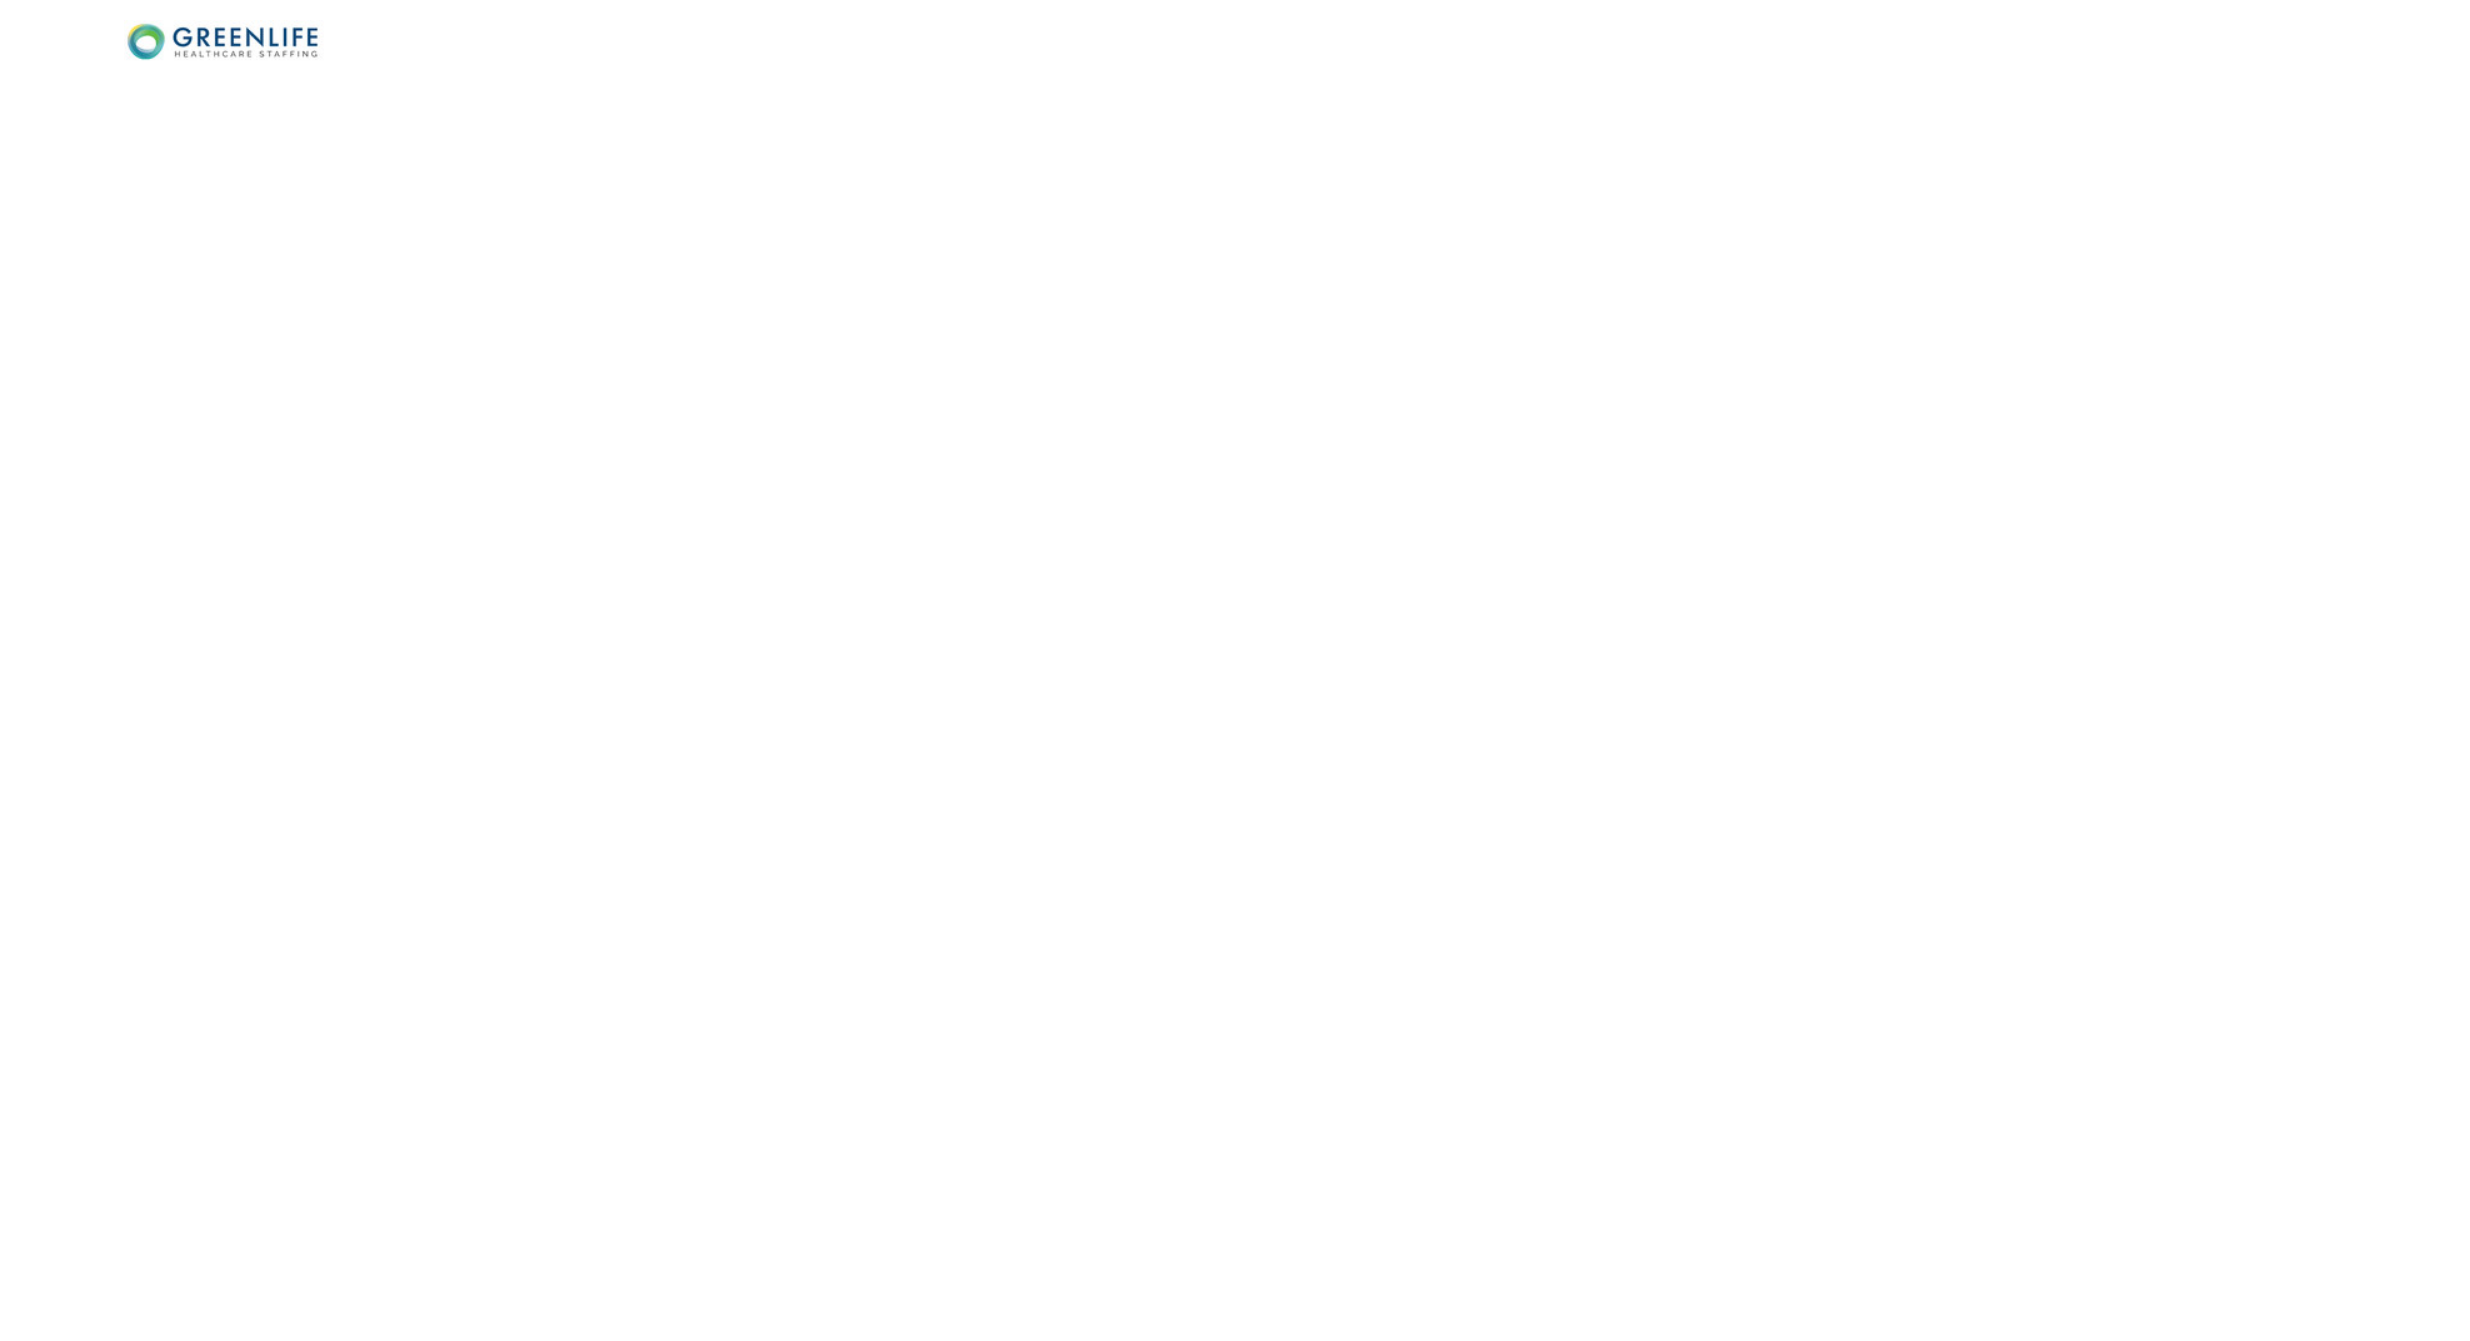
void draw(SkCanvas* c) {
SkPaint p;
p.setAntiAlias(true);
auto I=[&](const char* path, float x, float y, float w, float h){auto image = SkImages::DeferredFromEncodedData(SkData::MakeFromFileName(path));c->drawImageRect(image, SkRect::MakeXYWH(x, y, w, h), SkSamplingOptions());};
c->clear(0xffffffff);
I("1.png",124,20,200,41);
}
